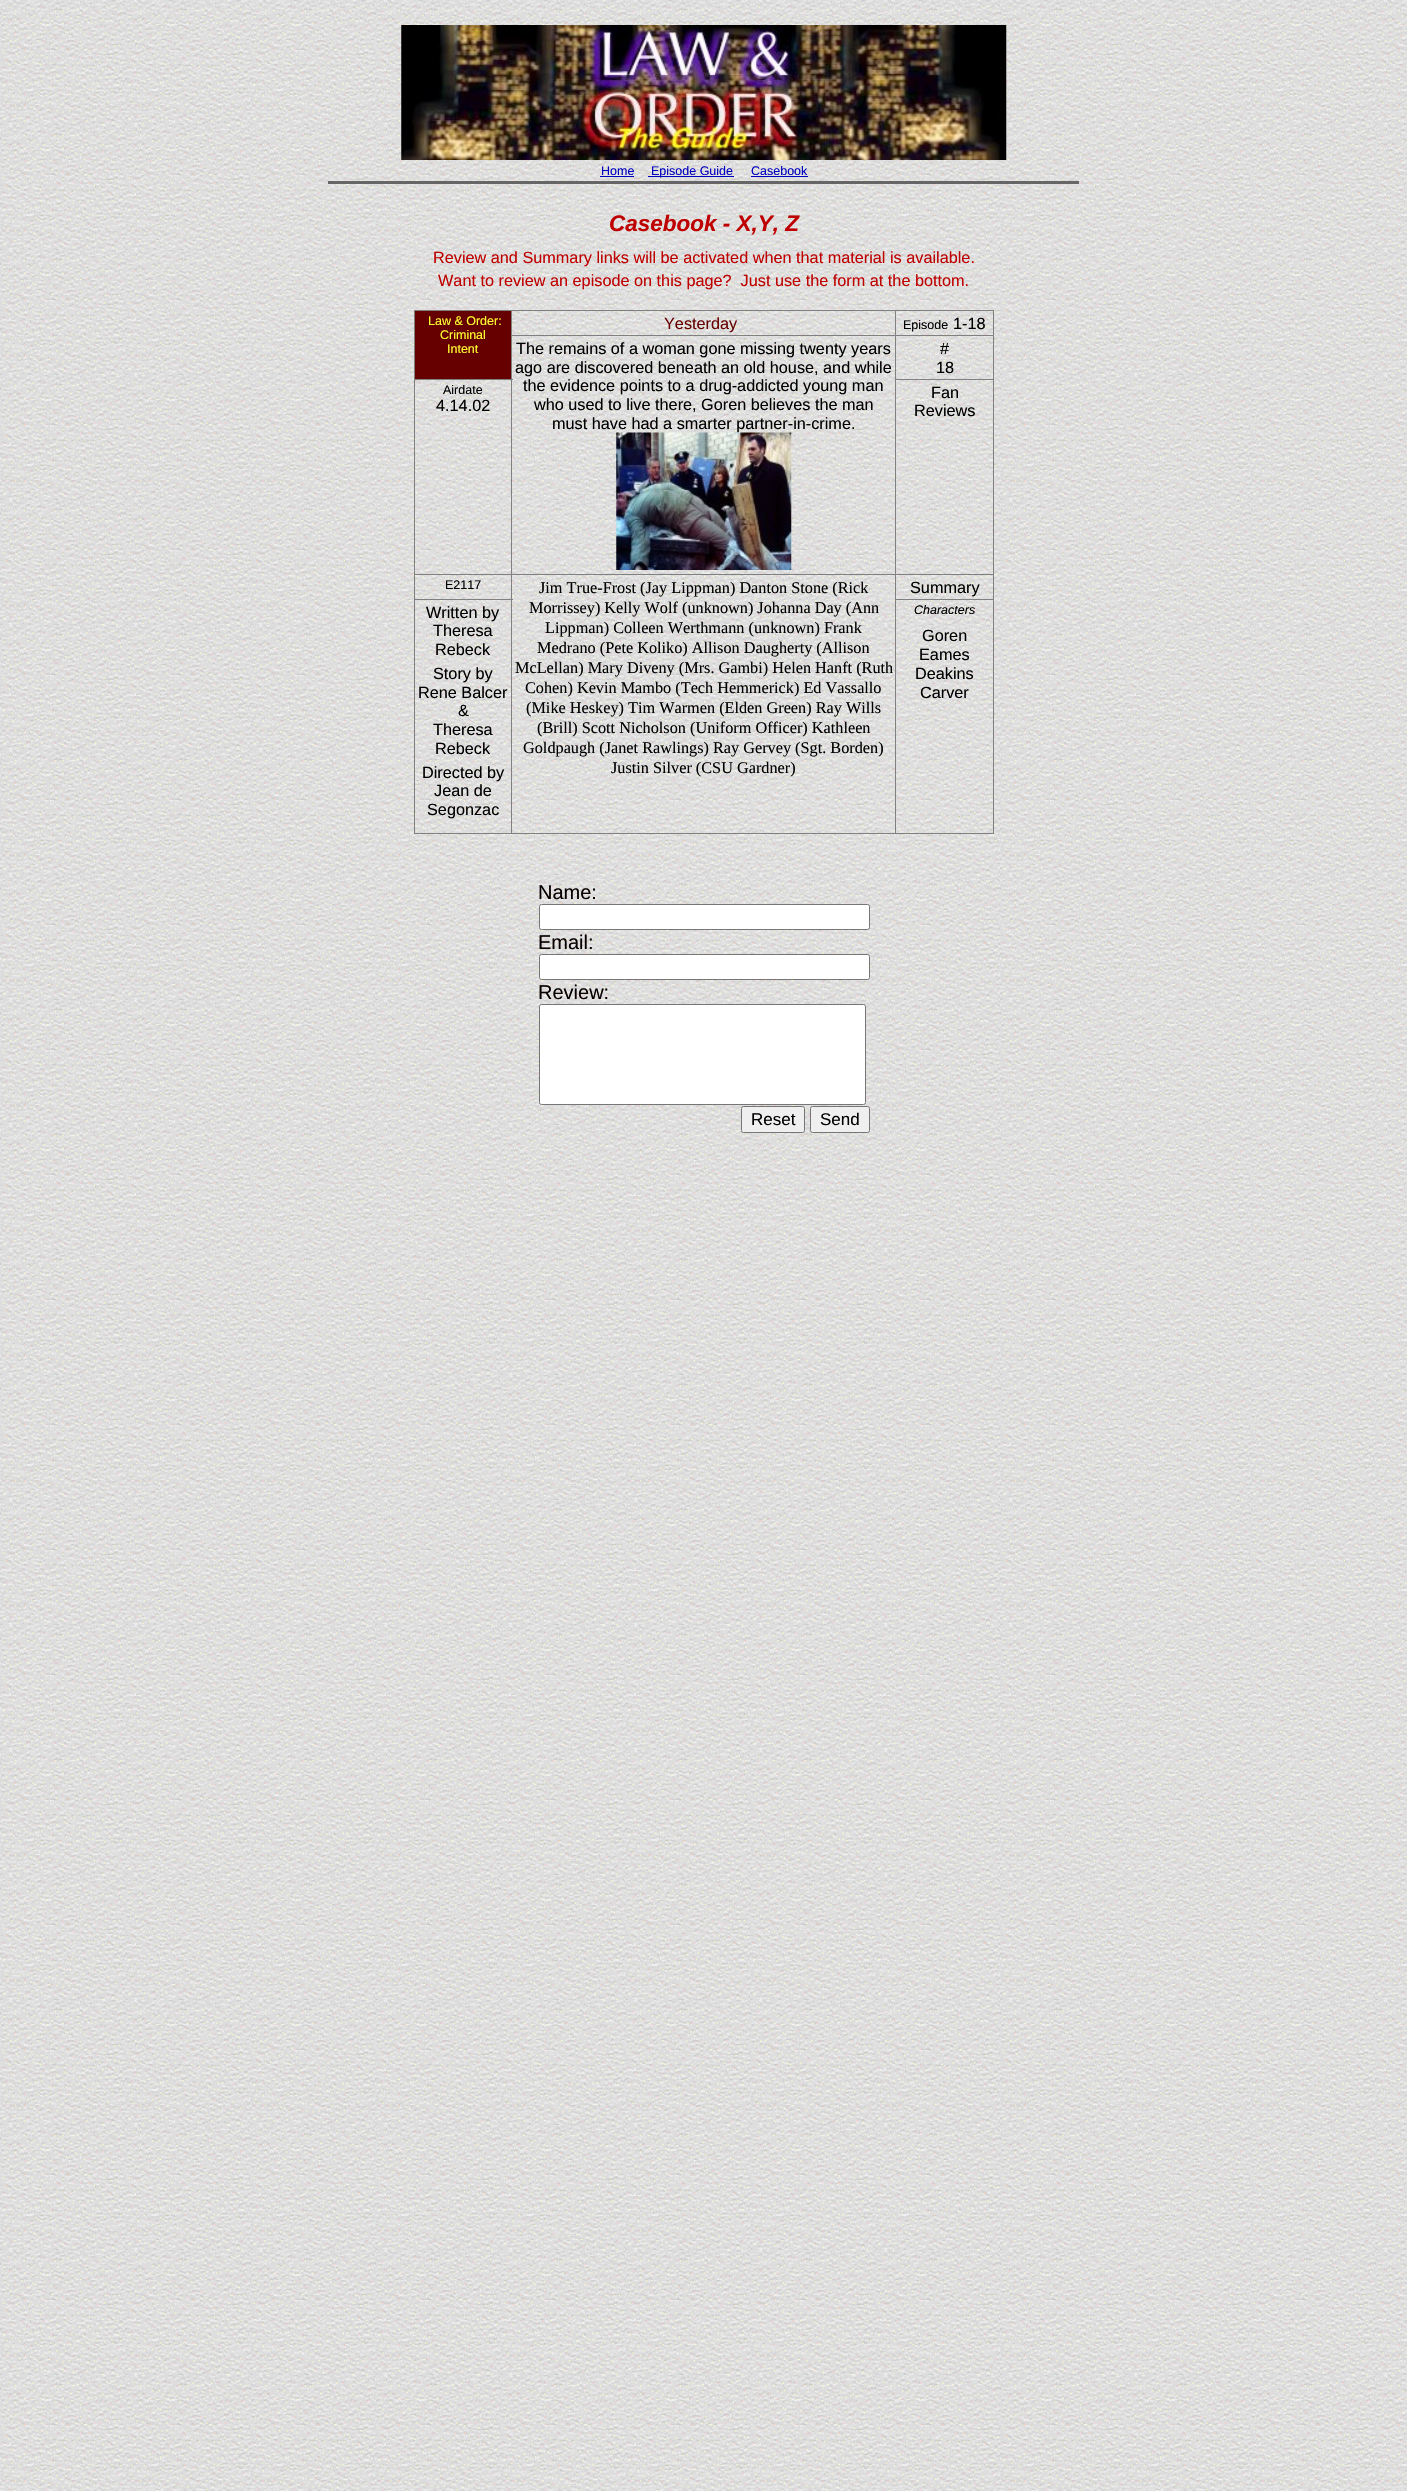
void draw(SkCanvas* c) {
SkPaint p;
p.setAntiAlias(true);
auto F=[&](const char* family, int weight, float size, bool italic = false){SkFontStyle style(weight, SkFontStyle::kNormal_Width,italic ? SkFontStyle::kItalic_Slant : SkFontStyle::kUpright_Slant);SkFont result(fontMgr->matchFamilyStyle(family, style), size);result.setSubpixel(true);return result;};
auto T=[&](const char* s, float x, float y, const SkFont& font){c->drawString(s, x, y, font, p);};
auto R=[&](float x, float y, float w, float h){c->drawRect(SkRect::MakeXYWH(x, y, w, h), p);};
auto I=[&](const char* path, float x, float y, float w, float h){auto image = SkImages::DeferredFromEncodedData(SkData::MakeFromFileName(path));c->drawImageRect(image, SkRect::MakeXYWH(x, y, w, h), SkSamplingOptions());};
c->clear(0xffffffff);
I("1.png",0,0,1407,2491);
I("2.png",401,25,606,135);
auto f1 = F("Liberation Sans",400,12.5);
p.setColor(0xff0000bf);
T("Home",601,175,f1);
R(600,176,34,1);
R(648,176,86,1);
T("Episode Guide",651,175,f1);
T("Casebook",751,175,f1);
R(751,176,57,1);
p.setColor(0xff666666);
R(328,181,751,3);
auto f2 = F("Liberation Sans",700,22.5,true);
p.setColor(0xffbf0000);
T("Casebook - X,Y, Z",609,231,f2);
auto f3 = F("Liberation Sans",400,16.25);
T("Review and Summary links will be activated when that material is available.",433,263,f3);
T("Want to review an episode on this page?  Just use the form at the bottom.",438,286,f3);
p.setColor(0xff808080);
R(414,310,580,1);
R(993,310,1,524);
R(414,833,580,1);
R(414,310,1,524);
p.setColor(0xff660000);
R(415,311,96,68);
p.setColor(0xffffff33);
T("Law & Order:",428,325,f1);
T("Criminal",440,339,f1);
T("Intent",447,353,f1);
p.setColor(0xff660000);
T("Yesterday",664,329,f3);
p.setColor(0xff808080);
R(895,335,99,1);
R(895,379,99,1);
R(895,574,99,1);
R(895,599,99,1);
R(895,599,1,235);
R(895,574,1,26);
R(511,574,385,1);
R(895,379,1,196);
R(895,335,1,45);
R(511,335,385,1);
R(895,310,1,26);
p.setColor(0xff000000);
T("Episode",903,329,f1);
T("1-18",953,329,f3);
p.setColor(0xff808080);
R(414,379,99,1);
R(414,599,99,1);
R(511,574,1,260);
R(414,574,99,1);
R(511,310,1,265);
p.setColor(0xff000000);
T("The remains of a woman gone missing twenty years",516,354,f3);
T("ago are discovered beneath an old house, and while",515,373,f3);
T("the evidence points to a drug-addicted young man",523,391,f3);
T("who used to live there, Goren believes the man",534,410,f3);
T("must have had a smarter partner-in-crime.",552,429,f3);
I("3.png",616,432,176,138);
T("#",940,354,f3);
T("18",936,373,f3);
T("Airdate",443,394,f1);
T("4.14.02",436,411,f3);
T("Fan",931,398,f3);
T("Reviews",914,416,f3);
T("E2117",445,589,f1);
auto f4 = F("Liberation Serif",400,16.25);
T("Jim True-Frost (Jay Lippman) Danton Stone (Rick",539,593,f4);
T("Morrissey) Kelly Wolf (unknown) Johanna Day (Ann",529,613,f4);
T("Lippman) Colleen Werthmann (unknown) Frank",545,633,f4);
T("Medrano (Pete Koliko) Allison Daugherty (Allison",537,653,f4);
T("McLellan) Mary Diveny (Mrs. Gambi) Helen Hanft (Ruth",515,673,f4);
T("Cohen) Kevin Mambo (Tech Hemmerick) Ed Vassallo",525,693,f4);
T("(Mike Heskey) Tim Warmen (Elden Green) Ray Wills",526,713,f4);
T("(Brill) Scott Nicholson (Uniform Officer) Kathleen",537,733,f4);
T("Goldpaugh (Janet Rawlings) Ray Gervey (Sgt. Borden)",523,753,f4);
T("Justin Silver (CSU Gardner)",611,773,f4);
T("Summary",910,593,f3);
T("Written by",426,618,f3);
T("Theresa",433,636,f3);
T("Rebeck",435,655,f3);
T("Story by",433,679,f3);
T("Rene Balcer",418,698,f3);
T("&",458,716,f3);
T("Theresa",433,735,f3);
T("Rebeck",435,754,f3);
T("Directed by",422,778,f3);
T("Jean de",434,796,f3);
T("Segonzac",427,815,f3);
auto f5 = F("Liberation Sans",400,12.5,true);
T("Characters",914,614,f5);
T("Goren",922,641,f3);
T("Eames",919,660,f3);
T("Deakins",915,679,f3);
T("Carver",920,698,f3);
auto f6 = F("Liberation Sans",400,20);
p.setColor(0xff080000);
T("Name:",538,899,f6);
p.setColor(0xffffffff);
c->drawRoundRect(SkRect::MakeXYWH(539.5,904.5,330,25),2,2,p);
p.setStroke(true);
p.setStrokeWidth(1);
p.setColor(0xff767676);
c->drawRoundRect(SkRect::MakeXYWH(539.5,904.5,330,25),2,2,p);
p.setStroke(false);
p.setColor(0xff080000);
T("Email:",538,949,f6);
p.setColor(0xffffffff);
c->drawRoundRect(SkRect::MakeXYWH(539.5,954.5,330,25),2,2,p);
p.setStroke(true);
p.setColor(0xff767676);
c->drawRoundRect(SkRect::MakeXYWH(539.5,954.5,330,25),2,2,p);
p.setStroke(false);
p.setColor(0xff080000);
T("Review:",538,999,f6);
p.setColor(0xffffffff);
c->drawRoundRect(SkRect::MakeXYWH(539.5,1004.5,326,100),2,2,p);
p.setStroke(true);
p.setColor(0xff767676);
c->drawRoundRect(SkRect::MakeXYWH(539.5,1004.5,326,100),2,2,p);
p.setStroke(false);
p.setColor(0xffefefef);
c->drawRoundRect(SkRect::MakeXYWH(741.5,1106.5,63,26),2,2,p);
p.setStroke(true);
p.setColor(0xff767676);
c->drawRoundRect(SkRect::MakeXYWH(741.5,1106.5,63,26),2,2,p);
auto f7 = F("Liberation Sans",400,17);
p.setStroke(false);
p.setColor(0xff000000);
T("Reset",751,1125,f7);
p.setColor(0xffefefef);
c->drawRoundRect(SkRect::MakeXYWH(810.5,1106.5,59,26),2,2,p);
p.setStroke(true);
p.setColor(0xff767676);
c->drawRoundRect(SkRect::MakeXYWH(810.5,1106.5,59,26),2,2,p);
p.setStroke(false);
p.setColor(0xff000000);
T("Send",820,1125,f7);
}
